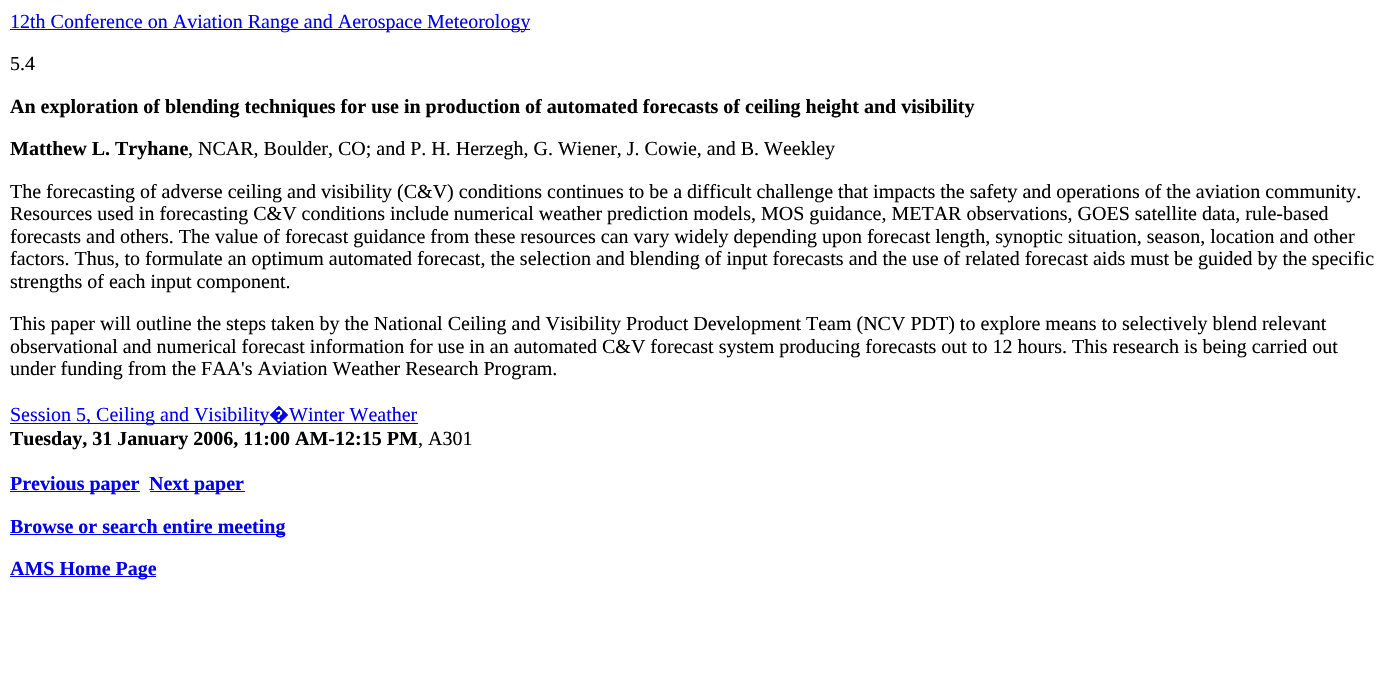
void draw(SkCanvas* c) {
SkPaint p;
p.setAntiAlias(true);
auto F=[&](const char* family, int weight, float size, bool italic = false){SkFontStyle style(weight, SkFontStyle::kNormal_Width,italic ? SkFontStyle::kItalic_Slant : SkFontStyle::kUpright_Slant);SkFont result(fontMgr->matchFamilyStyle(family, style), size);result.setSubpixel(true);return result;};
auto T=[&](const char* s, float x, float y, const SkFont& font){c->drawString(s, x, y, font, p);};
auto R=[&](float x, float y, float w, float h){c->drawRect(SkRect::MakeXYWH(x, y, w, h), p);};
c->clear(0xffffffff);
p.setColor(0xff0000ee);
R(10,29,520,1);
auto f1 = F("Liberation Serif",400,20);
T("12th Conference on Aviation Range and Aerospace Meteorology",10,28,f1);
p.setColor(0xff000000);
T("5.4",10,70,f1);
auto f2 = F("Liberation Serif",700,20);
T("An exploration of blending techniques for use in production of automated forecasts of ceiling height and visibility",10,113,f2);
T("Matthew L. Tryhane",10,155,f2);
T(", NCAR, Boulder, CO; and P. H. Herzegh, G. Wiener, J. Cowie, and B. Weekley",188,155,f1);
T("The forecasting of adverse ceiling and visibility (C&V) conditions continues to be a difficult challenge that impacts the safety and operations of the aviation community.",10,198,f1);
T("Resources used in forecasting C&V conditions include numerical weather prediction models, MOS guidance, METAR observations, GOES satellite data, rule-based",10,220,f1);
T("forecasts and others. The value of forecast guidance from these resources can vary widely depending upon forecast length, synoptic situation, season, location and other",10,243,f1);
T("factors. Thus, to formulate an optimum automated forecast, the selection and blending of input forecasts and the use of related forecast aids must be guided by the specific",10,265,f1);
T("strengths of each input component.",10,288,f1);
T("This paper will outline the steps taken by the National Ceiling and Visibility Product Development Team (NCV PDT) to explore means to selectively blend relevant",10,330,f1);
T("observational and numerical forecast information for use in an automated C&V forecast system producing forecasts out to 12 hours. This research is being carried out",10,353,f1);
T("under funding from the FAA's Aviation Weather Research Program.",10,375,f1);
p.setColor(0xff0000ee);
R(10,423,408,1);
T("Session 5, Ceiling and Visibility",10,421,f1);
auto f3 = F("Noto Sans",400,20);
T("�",269,421,f3);
T("Winter Weather",289,421,f1);
p.setColor(0xff000000);
T("Tuesday, 31 January 2006, 11:00 AM-12:15 PM",10,445,f2);
T(", A301",418,445,f1);
p.setColor(0xff0000ee);
R(10,491,130,1);
T("Previous paper",10,490,f2);
R(150,491,95,1);
T("Next paper",149,490,f2);
R(10,534,275,1);
T("Browse or search entire meeting",10,533,f2);
R(10,576,146,1);
T("AMS Home Page",10,575,f2);
}
